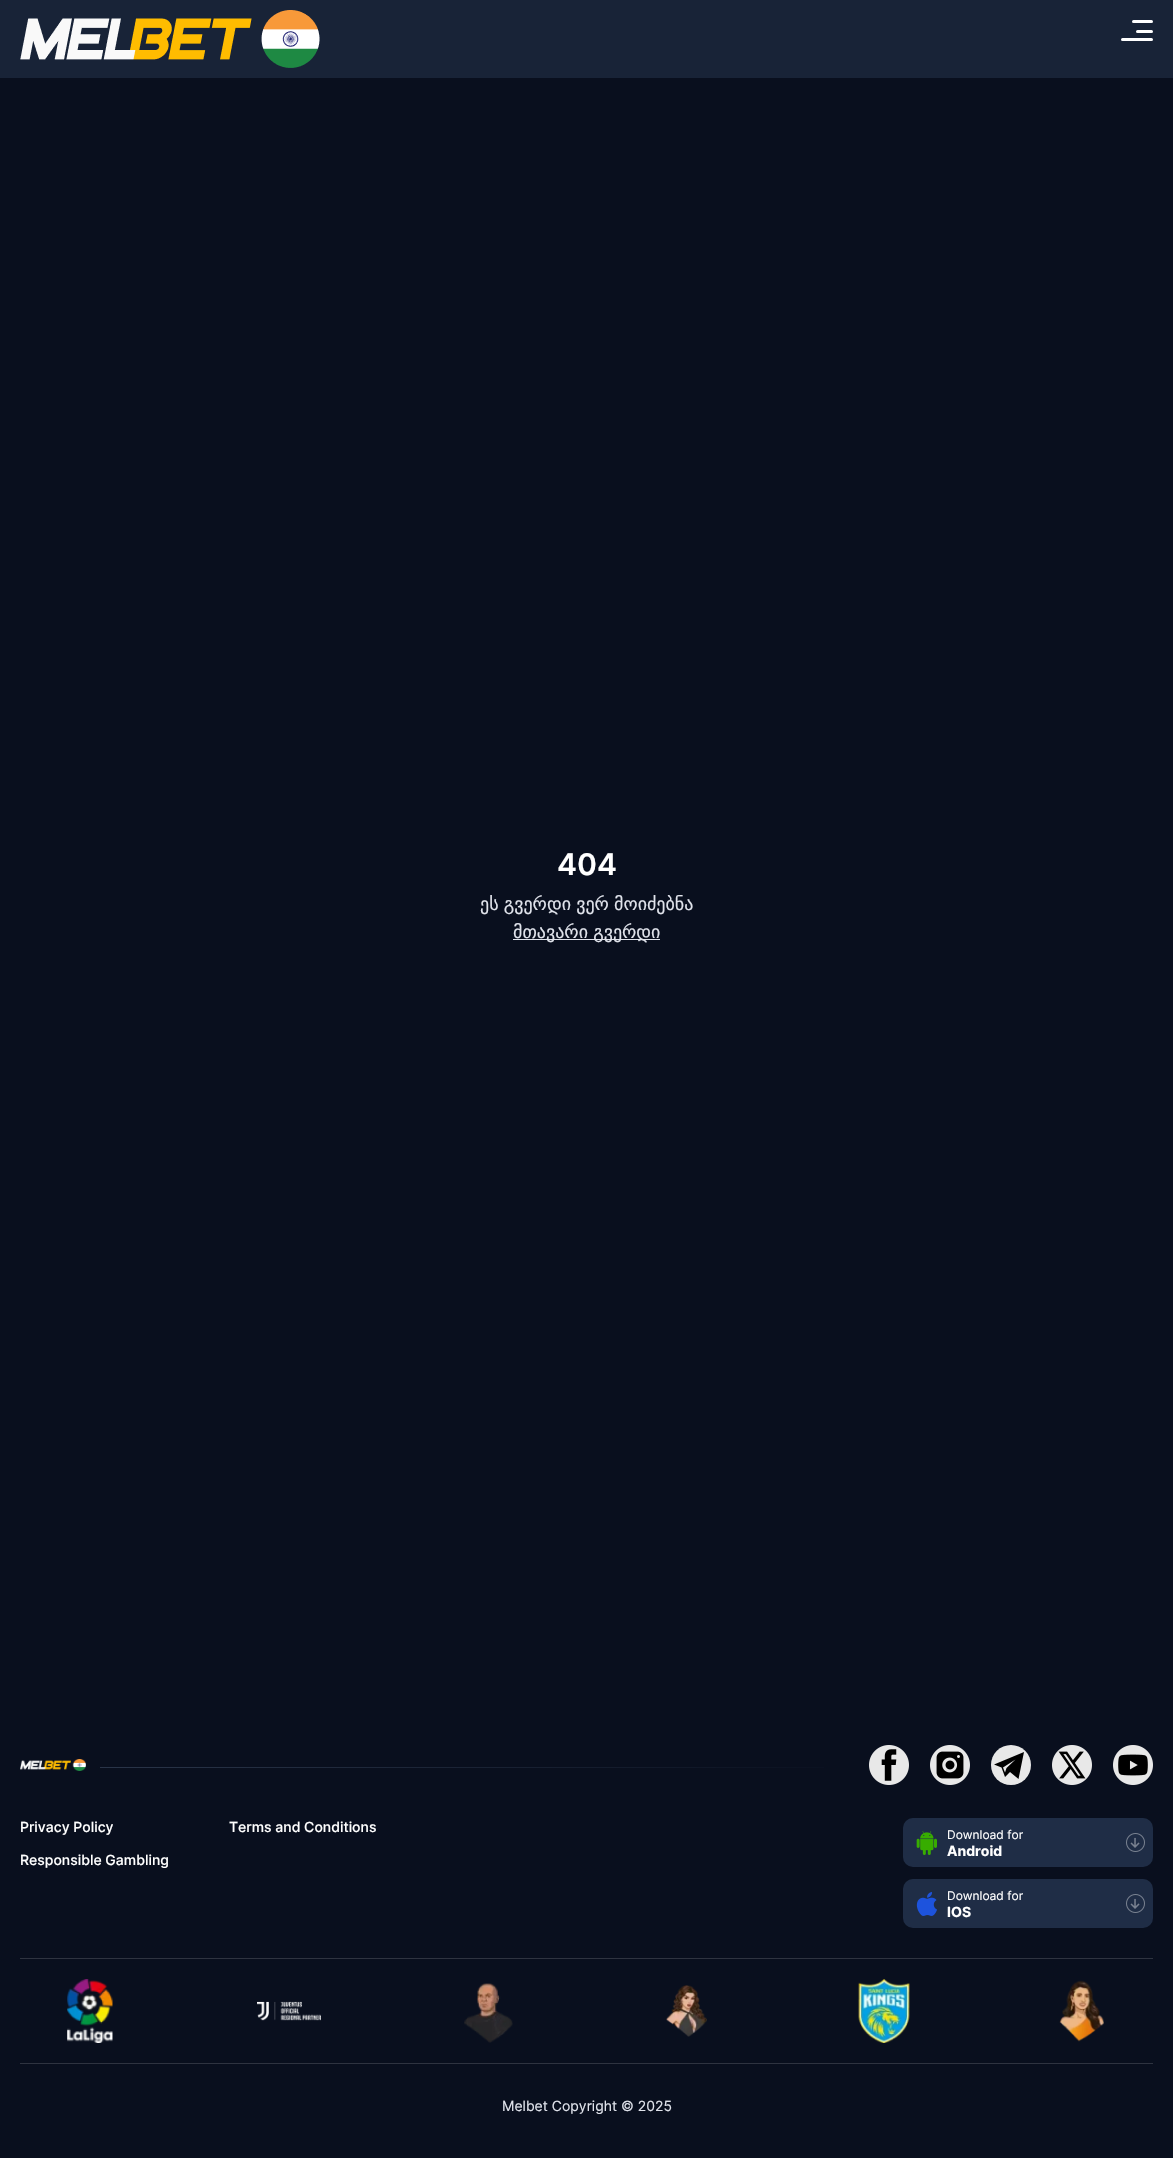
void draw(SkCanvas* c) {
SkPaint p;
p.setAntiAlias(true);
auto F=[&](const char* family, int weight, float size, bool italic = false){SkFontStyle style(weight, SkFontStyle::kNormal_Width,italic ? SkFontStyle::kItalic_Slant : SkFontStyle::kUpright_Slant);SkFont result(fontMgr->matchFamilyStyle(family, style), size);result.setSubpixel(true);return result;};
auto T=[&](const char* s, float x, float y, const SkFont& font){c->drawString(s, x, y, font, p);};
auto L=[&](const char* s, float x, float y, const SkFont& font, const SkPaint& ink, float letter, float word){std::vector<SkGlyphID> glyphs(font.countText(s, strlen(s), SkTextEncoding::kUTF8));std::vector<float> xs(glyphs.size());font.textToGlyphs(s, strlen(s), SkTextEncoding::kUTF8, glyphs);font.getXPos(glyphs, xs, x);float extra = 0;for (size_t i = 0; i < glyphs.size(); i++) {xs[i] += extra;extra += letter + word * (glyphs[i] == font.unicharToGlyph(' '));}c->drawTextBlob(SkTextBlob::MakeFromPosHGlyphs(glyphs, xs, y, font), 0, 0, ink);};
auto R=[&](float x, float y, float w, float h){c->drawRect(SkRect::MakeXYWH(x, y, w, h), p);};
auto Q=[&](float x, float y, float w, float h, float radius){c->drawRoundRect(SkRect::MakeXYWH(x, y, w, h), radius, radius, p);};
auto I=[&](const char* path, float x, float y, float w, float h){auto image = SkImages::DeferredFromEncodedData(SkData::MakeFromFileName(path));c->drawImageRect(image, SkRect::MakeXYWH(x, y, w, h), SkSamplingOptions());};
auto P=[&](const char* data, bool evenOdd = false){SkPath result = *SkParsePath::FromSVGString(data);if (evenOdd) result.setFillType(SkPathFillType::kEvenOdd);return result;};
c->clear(0xff090f1e);
p.setColor(0xff182337);
R(0,0,1173,78);
I("1.png",20,10,300,58);
p.setColor(0xffffffff);
Q(1132,20,21,3,1.5);
Q(1136,30,17,3,1.5);
Q(1121,38,32,3,1.5);
auto f1 = F("Inter",600,30);
T("404",557,875,f1);
auto f2 = F("DejaVu Sans",400,18);
p.setColor(0xffe0e3eb);
L("ეს გვერდი ვერ მოიძებნა",480,910,f2,p,0,-.5);
R(513,939,147,1);
L("მთავარი გვერდი",513,938,f2,p,0,-.5);
I("2.png",20,1759,66,12);
{
const SkColor colors[] = {0xff2a3549,0xff090f1e};
const float stops[] = {0,1};
const SkPoint ends[] = {{91,1768}, {869,1768}};
p.setShader(SkGradientShader::MakeLinear(ends, colors, stops, 2, SkTileMode::kClamp));
p.setAlpha(255);
}
R(100,1767,724,1);
I("3.png",869,1745,40,40);
I("4.png",930,1745,40,40);
p.setShader(nullptr);
p.setColor(0xffe8e8e8);
c->drawCircle(1011,1765,20,p);
p.setColor(0xff000000);
c->drawPath(P("M1001.5 1767.5l3.5 9.5l5-5l8.5 7l5.5-27l-30 12.5zm14-8l-9 8.5l-1.5 4.5l-2-5z"),p);
I("5.png",1052,1745,40,40);
I("6.png",1113,1745,40,40);
auto f3 = F("Inter",500,14);
p.setColor(0xffffffff);
T("Privacy Policy",20,1832,f3);
T("Terms and Conditions",229,1832,f3);
T("Responsible Gambling",20,1865,f3);
p.setColor(0xff1f2d46);
Q(903,1818,250,49,10);
I("7.png",916,1831,21,24);
auto f4 = F("Inter",400,12);
p.setColor(0xffffffff);
T("Download for",947,1839,f4);
auto f5 = F("Inter",700,14);
T("Android",947,1856,f5);
I("8.png",1126,1833,19,19);
p.setColor(0xff1f2d46);
Q(903,1879,250,49,10);
I("9.png",916,1892,21,24);
p.setColor(0xffffffff);
T("Download for",947,1900,f4);
T("IOS",947,1917,f5);
I("8.png",1126,1894,19,19);
p.setColor(0xff2e3340);
R(20,1958,1133,1);
R(20,2063,1133,1);
I("10.png",67,1979,46,64);
I("11.png",257,2001,64,20);
I("12.png",464,1983,49,60);
I("13.png",666,1985,41,52);
I("14.png",858,1979,52,64);
I("15.png",1059,1980,45,62);
auto f6 = F("Inter",400,14);
p.setColor(0xffe0e3eb);
T("Melbet Copyright © 2025",502,2111,f6);
}
